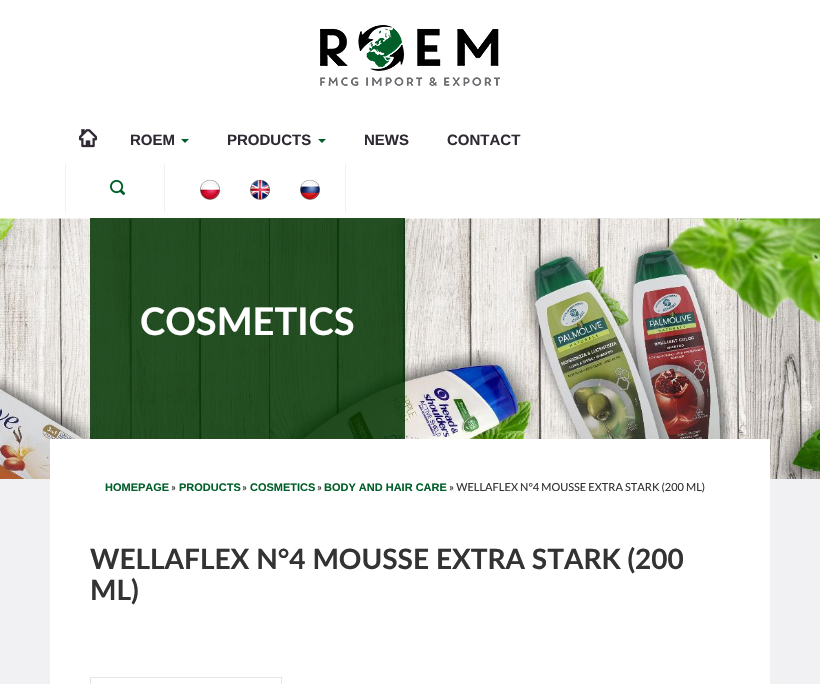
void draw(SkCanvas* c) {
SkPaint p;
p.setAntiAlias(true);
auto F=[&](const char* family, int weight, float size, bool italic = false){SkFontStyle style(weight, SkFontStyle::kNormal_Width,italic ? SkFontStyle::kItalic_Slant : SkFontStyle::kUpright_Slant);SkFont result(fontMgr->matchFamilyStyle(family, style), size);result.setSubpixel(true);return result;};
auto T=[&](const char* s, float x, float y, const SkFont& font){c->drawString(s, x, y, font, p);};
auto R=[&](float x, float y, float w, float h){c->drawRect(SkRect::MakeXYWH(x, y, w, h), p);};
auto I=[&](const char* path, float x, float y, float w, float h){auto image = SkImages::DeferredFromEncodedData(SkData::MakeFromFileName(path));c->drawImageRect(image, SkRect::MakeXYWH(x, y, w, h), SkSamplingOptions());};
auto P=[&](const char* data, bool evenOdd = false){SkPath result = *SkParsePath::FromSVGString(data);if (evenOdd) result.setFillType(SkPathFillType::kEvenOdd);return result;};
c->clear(0xfff1f1f3);
p.setColor(0xffffffff);
R(0,0,820,218);
I("1.png",320,25,180,61);
I("2.png",79,129,18,19);
auto f1 = F("Liberation Sans",700,15);
p.setColor(0xff2f2933);
T("ROEM",130,145,f1);
p.setColor(0xff005e28);
c->drawPath(P("M181 139h8l-4 4z"),p);
p.setColor(0xff2f2933);
T("PRODUCTS",227,145,f1);
p.setColor(0xff005e28);
c->drawPath(P("M318 139h8l-4 4z"),p);
p.setColor(0xff2f2933);
T("NEWS",364,145,f1);
T("CONTACT",447,145,f1);
p.setColor(0xfff1f1f3);
R(65,164,1,49);
R(164,164,1,49);
I("3.png",110,179,15,16);
R(345,164,1,48);
I("4.png",200,179,20,21);
I("5.png",250,179,20,21);
I("6.png",300,179,20,21);
I("7.png",0,218,820,261);
p.setColor(0xd9003300);
R(90,218,315,221);
auto f2 = F("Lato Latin",700,38);
p.setColor(0xffffffff);
T("COSMETICS",140,335,f2);
R(50,439,720,245);
auto f3 = F("Liberation Sans",700,11);
p.setColor(0xff015f2a);
T("HOMEPAGE",105,491,f3);
auto f4 = F("Lato",400,11);
p.setColor(0xff333333);
T("»",171,491,f4);
p.setColor(0xff015f2a);
T("PRODUCTS",179,491,f3);
p.setColor(0xff333333);
T("»",242,491,f4);
p.setColor(0xff015f2a);
T("COSMETICS",250,491,f3);
p.setColor(0xff333333);
T("»",317,491,f4);
p.setColor(0xff015f2a);
T("BODY AND HAIR CARE",324,491,f3);
p.setColor(0xff333333);
T("» WELLAFLEX N°4 MOUSSE EXTRA STARK (200 ML)",449,491,f4);
auto f5 = F("Lato Latin",700,28);
T("WELLAFLEX N°4 MOUSSE EXTRA STARK (200",90,569,f5);
T("ML)",90,600,f5);
p.setStroke(true);
p.setStrokeWidth(1);
p.setColor(0xffe5e5e5);
c->drawRect(SkRect::MakeXYWH(90.5,677.5,191,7),p);
}
